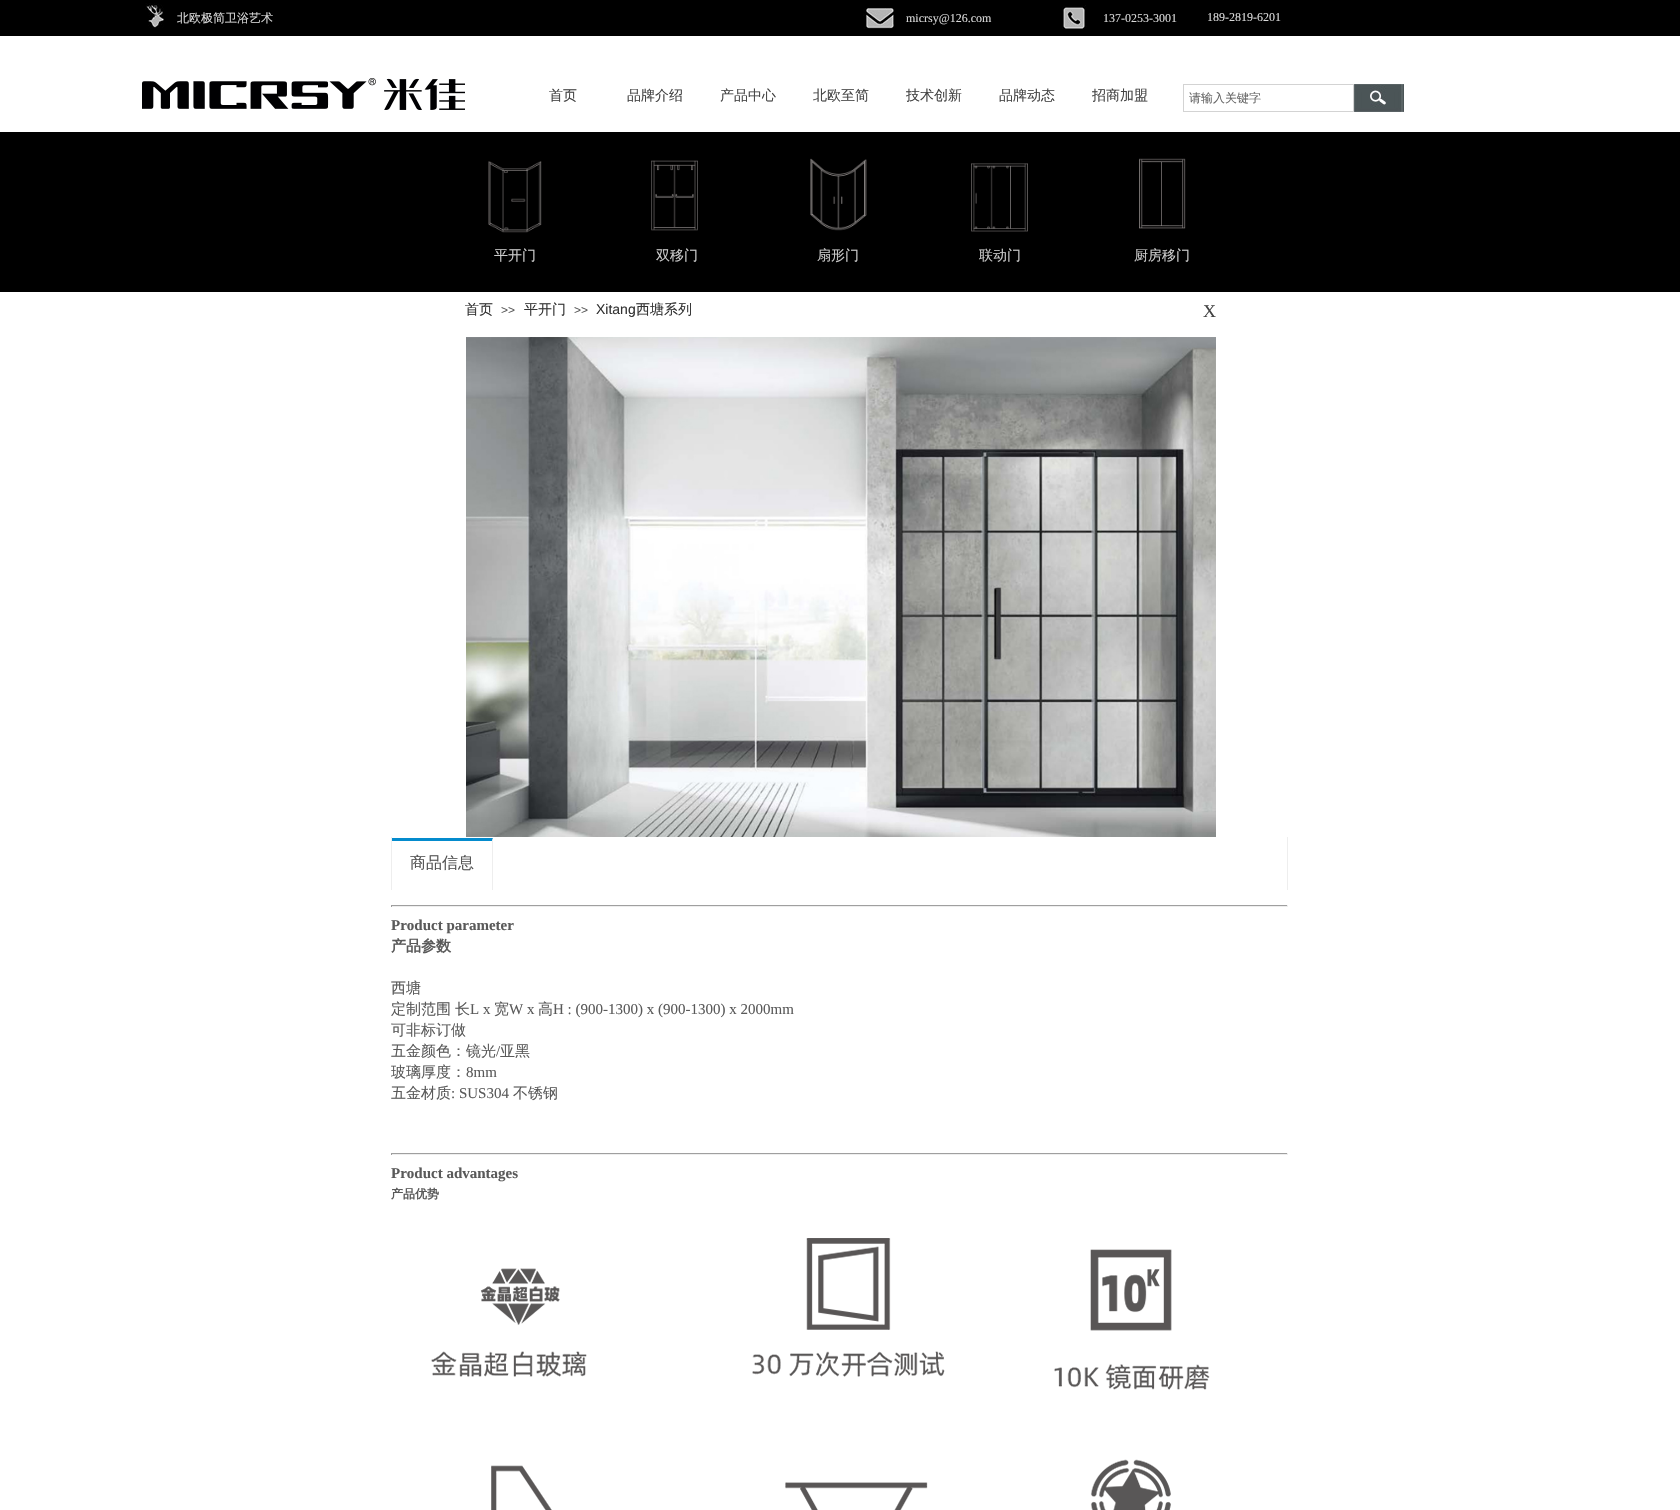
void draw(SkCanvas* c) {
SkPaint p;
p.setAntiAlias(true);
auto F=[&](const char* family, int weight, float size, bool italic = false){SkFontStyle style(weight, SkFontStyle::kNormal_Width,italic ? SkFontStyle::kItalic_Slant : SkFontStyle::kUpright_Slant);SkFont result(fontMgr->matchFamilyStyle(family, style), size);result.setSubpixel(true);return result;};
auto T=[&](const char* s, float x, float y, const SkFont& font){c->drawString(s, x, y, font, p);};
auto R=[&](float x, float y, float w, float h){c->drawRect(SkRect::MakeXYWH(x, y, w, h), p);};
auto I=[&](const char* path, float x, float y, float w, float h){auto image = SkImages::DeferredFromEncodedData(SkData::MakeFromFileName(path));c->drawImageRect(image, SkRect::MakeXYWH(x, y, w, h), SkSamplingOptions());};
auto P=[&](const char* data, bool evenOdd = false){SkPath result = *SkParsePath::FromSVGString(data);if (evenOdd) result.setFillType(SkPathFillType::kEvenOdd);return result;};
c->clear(0xffffffff);
p.setColor(0xff000000);
R(0,0,1680,36);
I("1.png",145,3,19,25);
auto f1 = F("WenQuanYi Zen Hei",500,12);
p.setColor(0xffd9d9d9);
T("北欧极简卫浴艺术",177,22,f1);
I("2.png",863,8,31,21);
auto f2 = F("Liberation Serif",400,12);
T("micrsy@126.com",906,22,f2);
I("3.png",1062,5,25,24);
T("137-0253-3001",1103,22,f2);
T("189-2819-6201",1207,21,f2);
I("4.png",142,78,323,32);
auto f3 = F("WenQuanYi Zen Hei",500,14);
p.setColor(0xff434343);
T("首页",549,100,f3);
T("品牌介绍",627,100,f3);
T("产品中心",720,100,f3);
T("北欧至简",813,100,f3);
T("技术创新",906,100,f3);
T("品牌动态",999,100,f3);
T("招商加盟",1092,100,f3);
p.setStroke(true);
p.setStrokeWidth(1);
p.setColor(0xffd3d3d3);
c->drawRect(SkRect::MakeXYWH(1183.5,84.5,170,27),p);
p.setStroke(false);
p.setColor(0xff666666);
T("请输入关键字",1189,102,f1);
I("5.png",1354,84,50,28);
p.setColor(0xff000000);
R(0,132,1680,160);
I("6.png",488,161,54,72);
I("7.png",651,160,47,71);
I("8.png",810,158,57,73);
I("9.png",971,163,57,69);
I("10.png",1139,158,47,71);
p.setColor(0xffcccccc);
T("平开门",494,260,f3);
T("双移门",656,260,f3);
T("扇形门",817,260,f3);
T("联动门",979,260,f3);
T("厨房移门",1134,260,f3);
p.setColor(0xff333333);
T("首页",465,314,f3);
auto f4 = F("Liberation Sans",400,12);
p.setColor(0xff5a5a5a);
T(">>",501,314,f4);
p.setColor(0xff333333);
T("平开门",524,314,f3);
p.setColor(0xff5a5a5a);
T(">>",574,314,f4);
auto f5 = F("Liberation Sans",400,14);
p.setColor(0xff333333);
T("Xitang",596,314,f5);
T("西塘系列",636,314,f3);
auto f6 = F("Liberation Serif",400,18);
p.setColor(0xff434343);
T("X",1203,317,f6);
I("11.png",466,337,750,500);
p.setColor(0xffeeeeee);
R(1287,837,1,53);
R(391,837,1,53);
p.setColor(0xff048bcd);
c->drawPath(P("M392 838h101l-1 3h-100z"),p);
c->save();
c->clipRect(SkRect::MakeXYWH(392,837,895,53));
p.setColor(0xffeeeeee);
c->drawPath(P("M493 838v55h-1v-52z"),p);
c->restore();
auto f7 = F("WenQuanYi Zen Hei",500,16);
p.setColor(0xff535353);
T("商品信息",410,868,f7);
p.setColor(0xff9f9f9f);
R(391,905,897,1);
p.setColor(0xffeeeeee);
R(1287,905,1,2);
R(391,906,897,1);
p.setColor(0xff9f9f9f);
R(391,905,1,2);
auto f8 = F("Liberation Serif",700,15);
p.setColor(0xff5a5a5a);
T("Product parameter",391,930,f8);
auto f9 = F("WenQuanYi Zen Hei",700,15);
T("产品参数",391,951,f9);
auto f10 = F("WenQuanYi Zen Hei",500,15);
T("西塘",391,993,f10);
T("定制范围",391,1014,f10);
T("长",455,1014,f10);
auto f11 = F("Liberation Serif",400,15);
T("L x",470,1014,f11);
T("宽",494,1014,f10);
T("W x",509,1014,f11);
T("高",538,1014,f10);
T("H : (900-1300) x (900-1300) x 2000mm",553,1014,f11);
T("可非标订做",391,1035,f10);
T("五金颜色：镜光",391,1056,f10);
T("/",496,1056,f11);
T("亚黑",500,1056,f10);
T("玻璃厚度：",391,1077,f10);
T("8mm",466,1077,f11);
T("五金材质",391,1098,f10);
T(": SUS304",451,1098,f11);
T("不锈钢",513,1098,f10);
p.setColor(0xff9f9f9f);
R(391,1153,897,1);
p.setColor(0xffeeeeee);
R(1287,1153,1,2);
R(391,1154,897,1);
p.setColor(0xff9f9f9f);
R(391,1153,1,2);
p.setColor(0xff5a5a5a);
T("Product advantages",391,1178,f8);
auto f12 = F("WenQuanYi Zen Hei",700,12);
T("产品优势",391,1198,f12);
I("12.png",431,1238,779,272);
}
